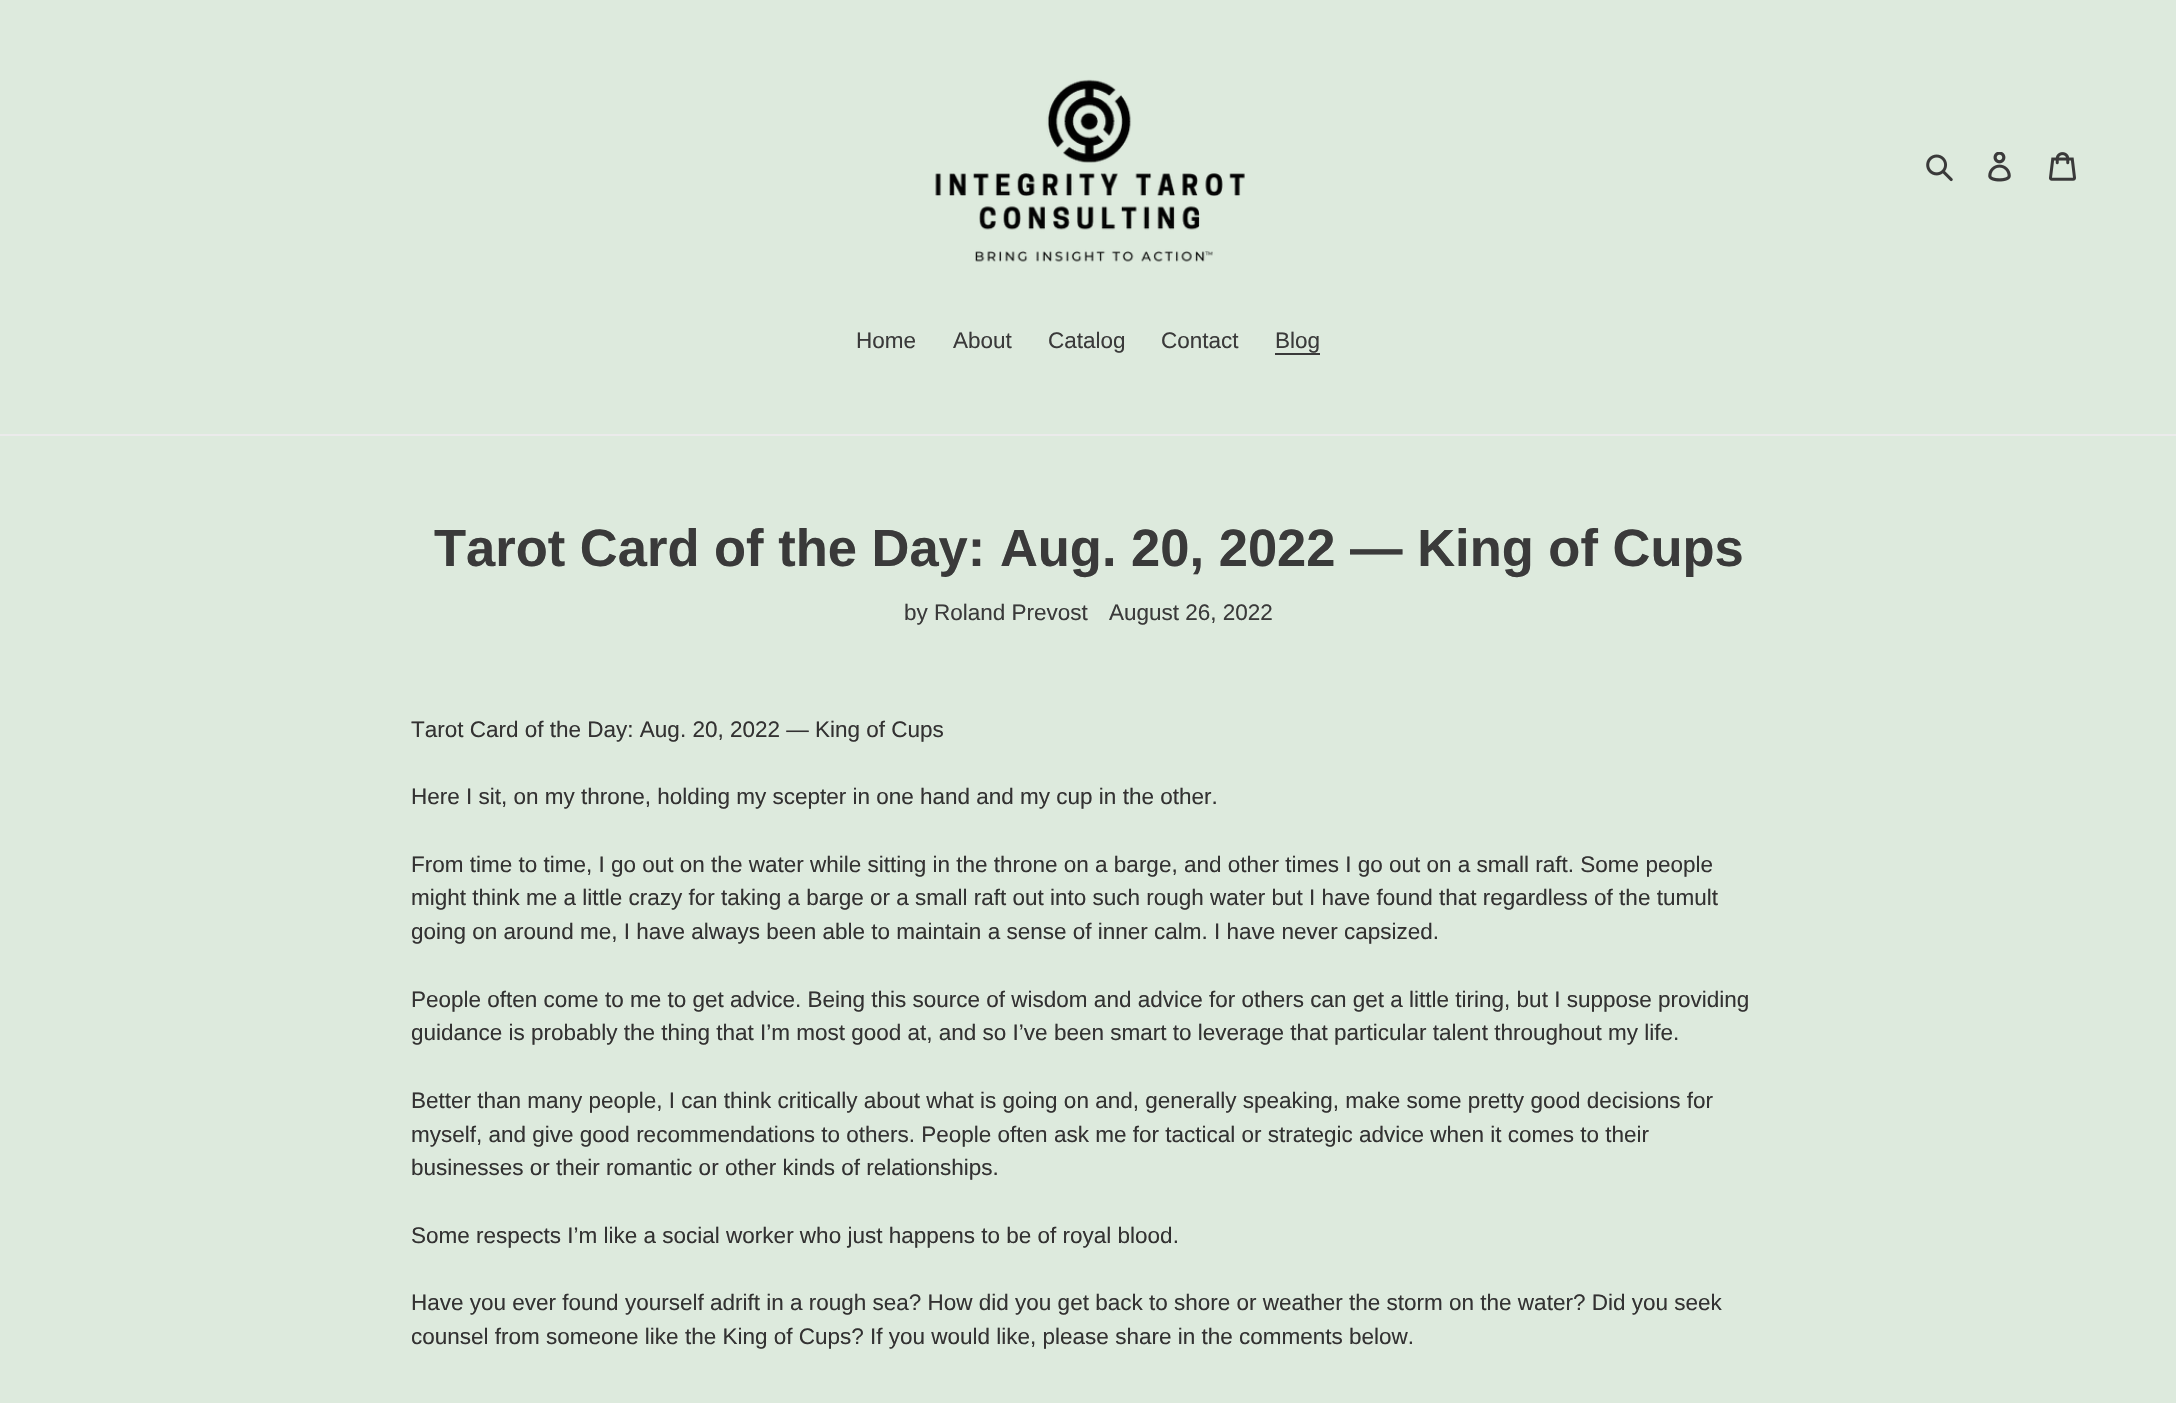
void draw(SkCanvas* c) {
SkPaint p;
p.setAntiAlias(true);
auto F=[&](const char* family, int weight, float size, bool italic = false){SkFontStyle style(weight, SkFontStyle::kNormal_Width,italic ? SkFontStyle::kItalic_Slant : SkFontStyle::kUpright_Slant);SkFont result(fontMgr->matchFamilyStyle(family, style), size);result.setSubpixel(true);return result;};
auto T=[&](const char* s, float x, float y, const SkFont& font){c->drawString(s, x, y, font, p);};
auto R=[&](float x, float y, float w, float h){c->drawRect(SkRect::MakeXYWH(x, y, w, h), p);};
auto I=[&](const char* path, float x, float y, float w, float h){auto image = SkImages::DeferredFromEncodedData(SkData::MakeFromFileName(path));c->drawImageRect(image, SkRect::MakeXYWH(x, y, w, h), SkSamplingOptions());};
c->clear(0xffddeadd);
I("1.png",935,79,310,183);
I("2.png",1926,154,27,28);
I("3.png",1988,152,23,30);
I("4.png",2049,152,27,29);
p.setColor(0xffebebeb);
R(0,434,2176,2);
auto f1 = F("Liberation Sans",400,22.5);
p.setColor(0xff3a3a3a);
T("Home",856,348,f1);
T("About",953,348,f1);
T("Catalog",1048,348,f1);
T("Contact",1161,348,f1);
T("Blog",1275,348,f1);
R(1275,353,45,2);
auto f2 = F("Liberation Sans",700,52.5);
T("Tarot Card of the Day: Aug. 20, 2022 — King of Cups",434,566,f2);
T("by Roland Prevost",904,620,f1);
T("August 26, 2022",1109,620,f1);
p.setColor(0xff333232);
T("Tarot Card of the Day: Aug. 20, 2022 — King of Cups",411,737,f1);
T("Here I sit, on my throne, holding my scepter in one hand and my cup in the other.",411,804,f1);
T("From time to time, I go out on the water while sitting in the throne on a barge, and other times I go out on a small raft. Some people",411,872,f1);
T("might think me a little crazy for taking a barge or a small raft out into such rough water but I have found that regardless of the tumult",411,905,f1);
T("going on around me, I have always been able to maintain a sense of inner calm. I have never capsized.",411,939,f1);
T("People often come to me to get advice. Being this source of wisdom and advice for others can get a little tiring, but I suppose providing",411,1007,f1);
T("guidance is probably the thing that I’m most good at, and so I’ve been smart to leverage that particular talent throughout my life.",411,1040,f1);
T("Better than many people, I can think critically about what is going on and, generally speaking, make some pretty good decisions for",411,1108,f1);
T("myself, and give good recommendations to others. People often ask me for tactical or strategic advice when it comes to their",411,1142,f1);
T("businesses or their romantic or other kinds of relationships.",411,1175,f1);
T("Some respects I’m like a social worker who just happens to be of royal blood.",411,1243,f1);
T("Have you ever found yourself adrift in a rough sea? How did you get back to shore or weather the storm on the water? Did you seek",411,1310,f1);
T("counsel from someone like the King of Cups? If you would like, please share in the comments below.",411,1344,f1);
}
